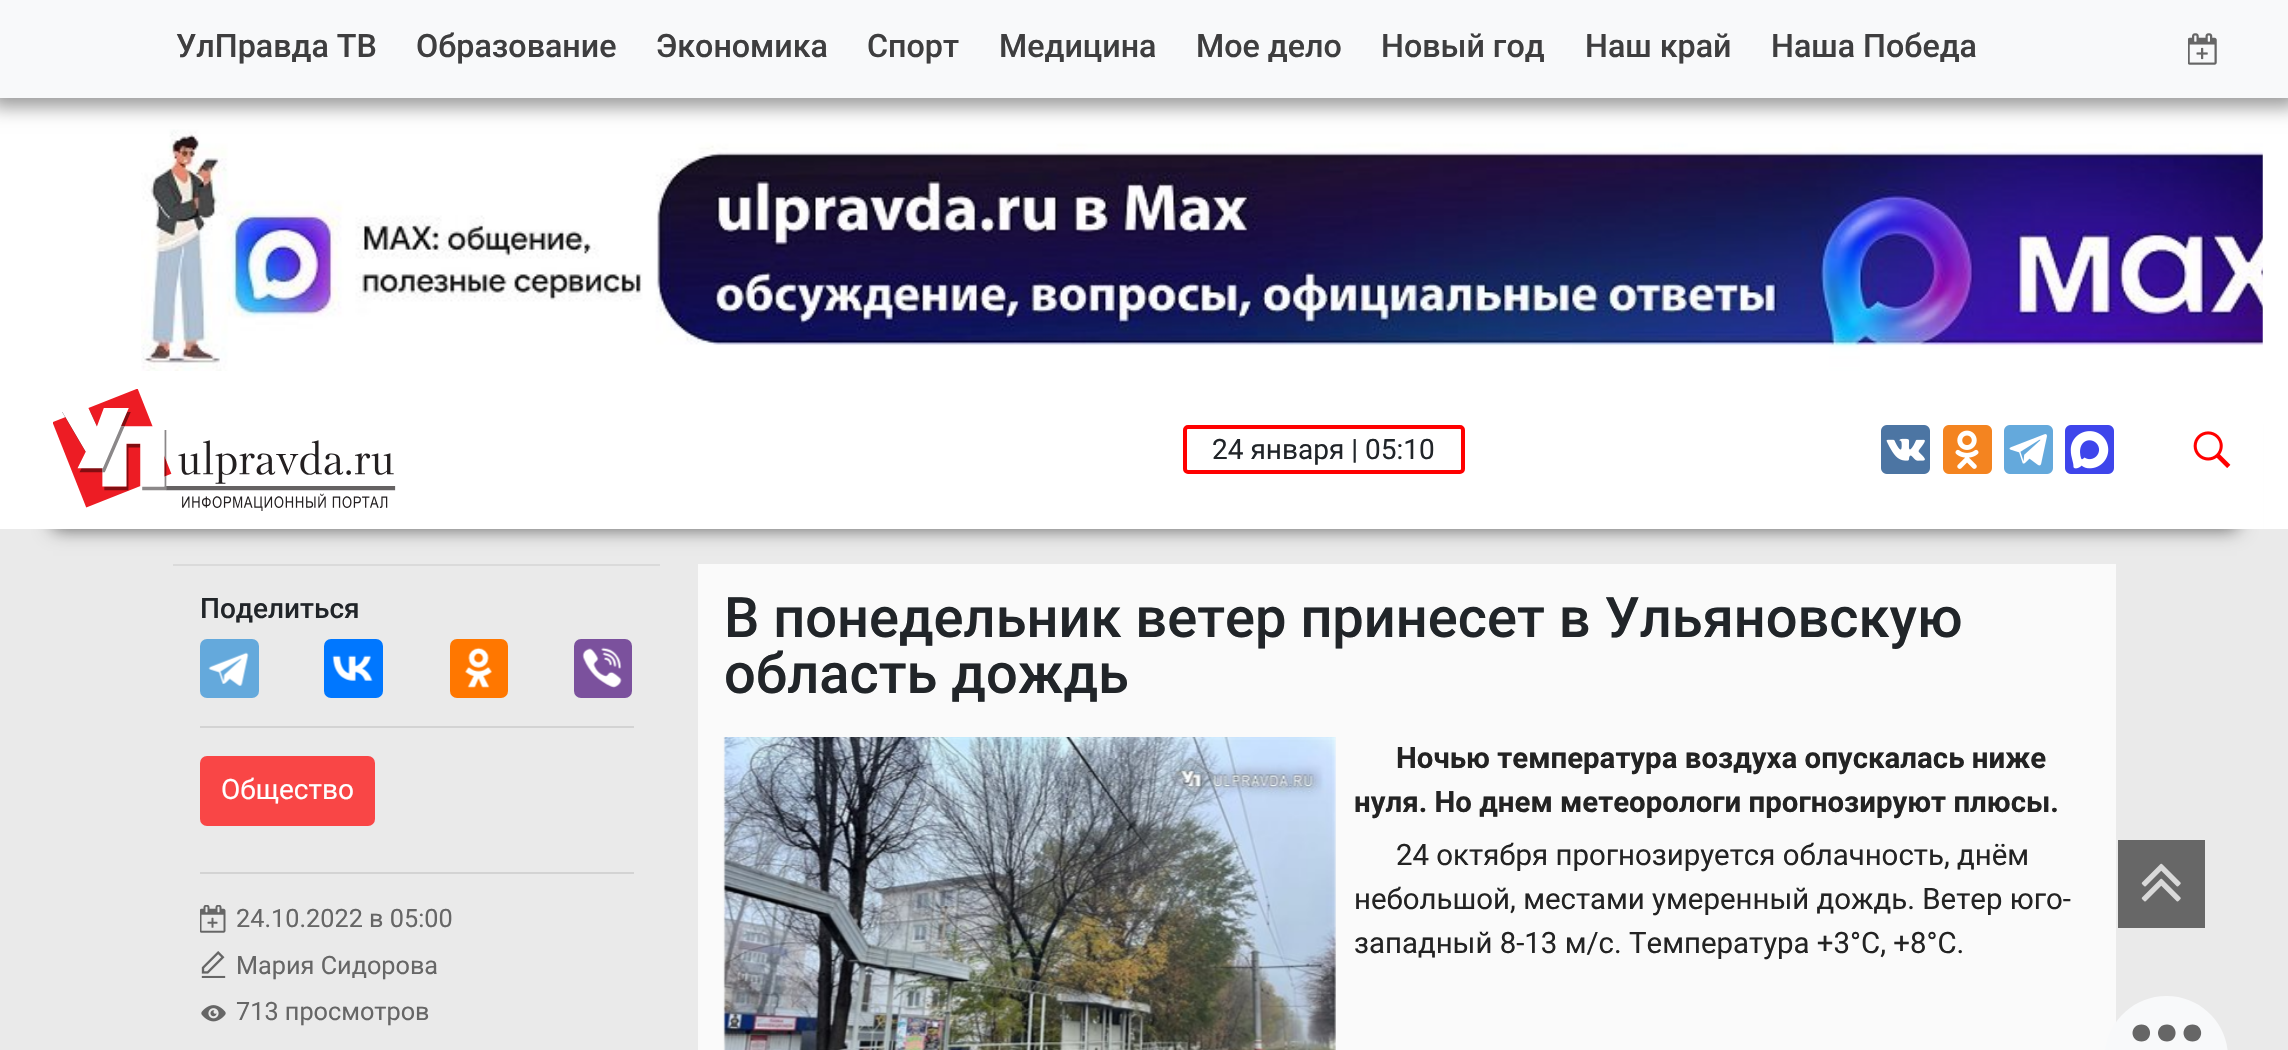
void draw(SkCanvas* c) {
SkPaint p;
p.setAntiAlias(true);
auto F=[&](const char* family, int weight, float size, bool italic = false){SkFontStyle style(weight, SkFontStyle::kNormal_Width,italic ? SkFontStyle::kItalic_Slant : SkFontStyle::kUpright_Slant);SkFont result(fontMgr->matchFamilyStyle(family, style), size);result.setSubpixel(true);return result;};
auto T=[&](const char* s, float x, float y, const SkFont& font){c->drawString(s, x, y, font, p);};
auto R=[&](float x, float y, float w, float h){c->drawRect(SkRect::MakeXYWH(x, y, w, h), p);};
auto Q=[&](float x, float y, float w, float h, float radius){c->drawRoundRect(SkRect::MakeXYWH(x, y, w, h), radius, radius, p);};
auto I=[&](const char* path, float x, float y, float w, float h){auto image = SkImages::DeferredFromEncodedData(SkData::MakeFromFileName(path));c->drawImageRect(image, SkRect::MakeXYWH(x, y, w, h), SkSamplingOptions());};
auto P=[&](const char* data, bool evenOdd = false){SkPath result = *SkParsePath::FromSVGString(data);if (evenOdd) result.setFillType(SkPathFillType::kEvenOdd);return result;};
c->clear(0xffffffff);
I("2.png",141,129,2122,242);
p.setColor(0x66000000);
p.setMaskFilter(SkMaskFilter::MakeBlur(kNormal_SkBlurStyle, 9));
c->drawRect(SkRect::MakeXYWH(-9,-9,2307,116),p);
p.setMaskFilter(nullptr);
p.setColor(0xfff8f9fa);
R(0,0,2288,98);
auto f1 = F("Roboto",500,32.25);
p.setColor(0xff3e3e3f);
T("УлПравда ТВ",176,57,f1);
T("Образование",416,57,f1);
T("Экономика",656,57,f1);
T("Спорт",867,57,f1);
T("Медицина",999,57,f1);
T("Мое дело",1196,57,f1);
T("Новый год",1381,57,f1);
T("Наш край",1585,57,f1);
T("Наша Победа",1771,57,f1);
I("1.png",2188,33,29,32);
p.setColor(0xffeaeaea);
R(0,529,2288,521);
c->save();
c->clipPath(P("M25 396h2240v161h-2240zm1-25h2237v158h-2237z",true),true);
p.setColor(0x99000000);
p.setMaskFilter(SkMaskFilter::MakeBlur(kNormal_SkBlurStyle, 9));
c->drawRect(SkRect::MakeXYWH(53,424,2184,105),p);
p.setMaskFilter(nullptr);
c->restore();
I("3.png",53,389,343,122);
p.setStroke(true);
p.setStrokeWidth(4);
p.setColor(0xffff0000);
c->drawRoundRect(SkRect::MakeXYWH(1185,427,278,45),3,3,p);
auto f2 = F("Roboto",400,28);
p.setStroke(false);
p.setColor(0xff212529);
T("24 января | 05:10",1212,459,f2);
I("4.png",1881,425,49,49);
I("5.png",1943,425,49,49);
I("6.png",2004,425,49,49);
I("7.png",2065,425,49,49);
I("8.png",2193,431,38,37);
p.setColor(0xffdadada);
R(173,564,487,2);
auto f3 = F("Roboto",500,28);
p.setColor(0xff212529);
T("Поделиться",200,618,f3);
p.setColor(0xff64a9dc);
Q(200,639,59,59,7);
I("9.png",208,652,41,34);
p.setColor(0xff0077ff);
Q(324,639,59,59,7);
I("10.png",332,655,41,26);
p.setColor(0xffff7700);
Q(450,639,58,59,7);
I("11.png",465,647,27,41);
p.setColor(0xff7b519d);
Q(574,639,58,59,7);
I("12.png",582,647,40,41);
p.setColor(0xffd3d3d3);
R(200,726,434,2);
p.setColor(0xfff94646);
Q(200,756,175,70,7);
p.setColor(0xffffffff);
T("Общество",221,799,f2);
p.setColor(0xffd3d3d3);
R(200,872,434,2);
I("13.png",200,905,26,28);
auto f4 = F("Roboto",400,25.25);
p.setColor(0xff666666);
T("24.10.2022 в 05:00",236,927,f4);
I("14.png",201,951,25,27);
T("Мария Сидорова",236,974,f4);
I("15.png",201,1005,25,17);
T("713 просмотров",236,1020,f4);
p.setColor(0xfffafafa);
R(698,564,1418,486);
auto f5 = F("Roboto",500,56);
p.setColor(0xff212529);
T("В понедельник ветер принесет в Ульяновскую",724,637,f5);
T("область дождь",724,693,f5);
I("16.png",723,737,613,313);
auto f6 = F("Roboto",700,29.4);
p.setColor(0xff232323);
T("Ночью температура воздуха опускалась ниже",1396,768,f6);
T("нуля. Но днем метеорологи прогнозируют плюсы.",1354,812,f6);
auto f7 = F("Roboto",400,29.4);
T("24 октября прогнозируется облачность, днём",1396,865,f7);
T("небольшой, местами умеренный дождь. Ветер юго-",1354,909,f7);
T("западный 8-13 м/с. Температура +3°С, +8°С.",1354,953,f7);
p.setColor(0xff676767);
R(2118,840,87,88);
I("17.png",2141,863,40,39);
p.setColor(0xfff8f9fa);
c->drawPath(P("M2166 996h1c33.5 0 61 27.5 61 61v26h-123v-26c0-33.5 27.5-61 61-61z"),p);
p.setColor(0xff666666);
c->drawPath(P("M2141.5 1041.5c-12 0-12-17 0-17c11.5 0 11.5 17 0 17zm25.5 0c-12 0-12-17 0-17c11.5 0 11.5 17 0 17z"),p);
c->drawPath(P("M2192.5 1041.5c-12 0-12-17 0-17c11.5 0 11.5 17 0 17z"),p);
}
